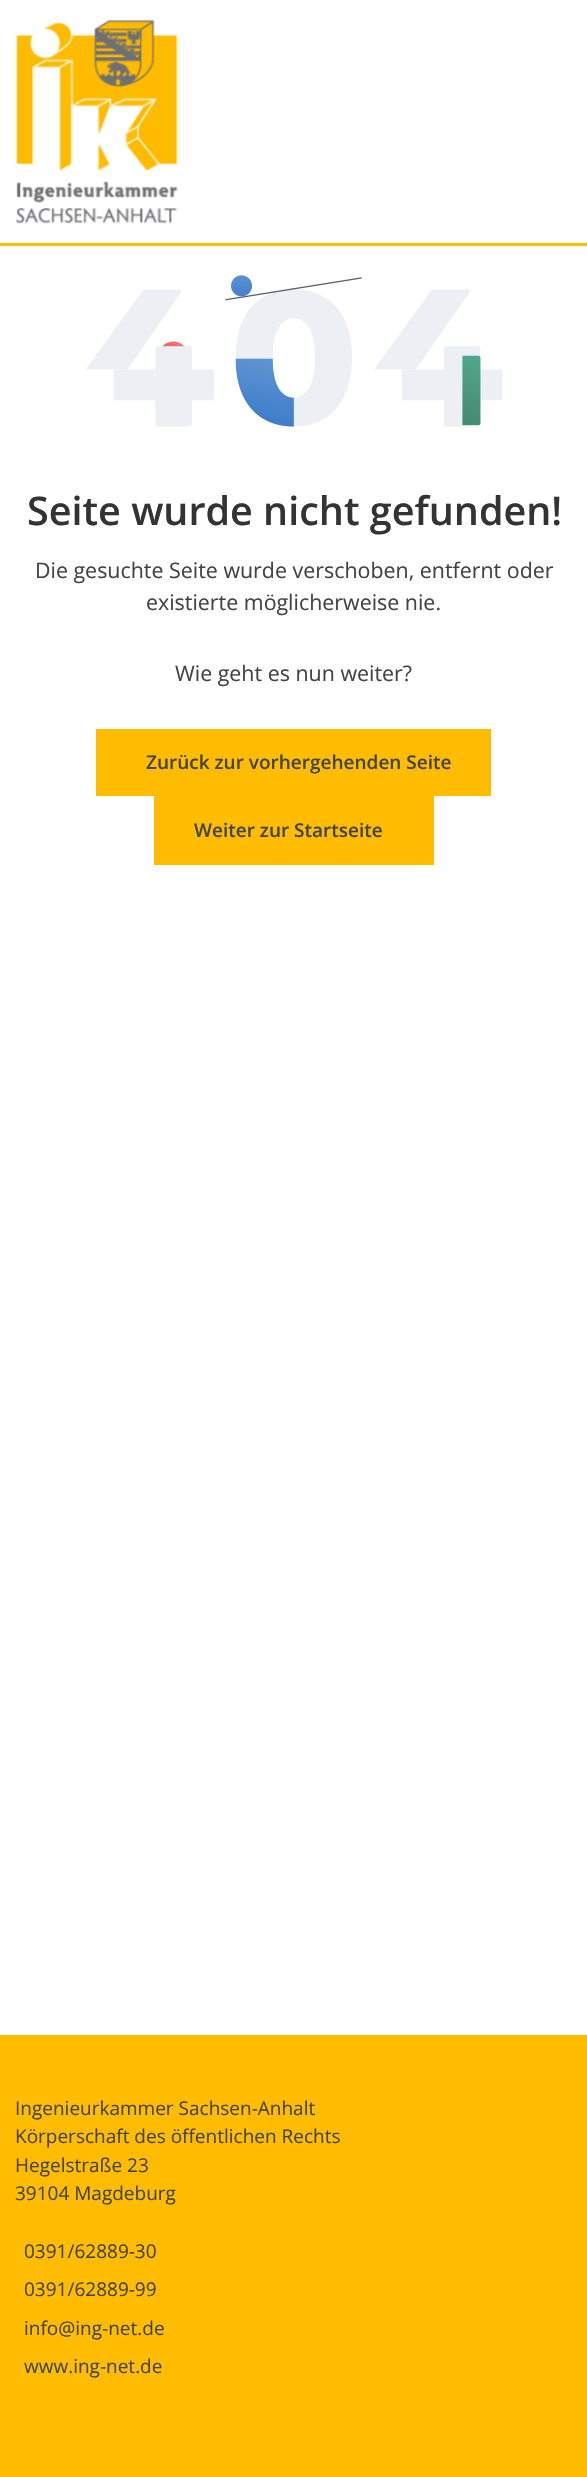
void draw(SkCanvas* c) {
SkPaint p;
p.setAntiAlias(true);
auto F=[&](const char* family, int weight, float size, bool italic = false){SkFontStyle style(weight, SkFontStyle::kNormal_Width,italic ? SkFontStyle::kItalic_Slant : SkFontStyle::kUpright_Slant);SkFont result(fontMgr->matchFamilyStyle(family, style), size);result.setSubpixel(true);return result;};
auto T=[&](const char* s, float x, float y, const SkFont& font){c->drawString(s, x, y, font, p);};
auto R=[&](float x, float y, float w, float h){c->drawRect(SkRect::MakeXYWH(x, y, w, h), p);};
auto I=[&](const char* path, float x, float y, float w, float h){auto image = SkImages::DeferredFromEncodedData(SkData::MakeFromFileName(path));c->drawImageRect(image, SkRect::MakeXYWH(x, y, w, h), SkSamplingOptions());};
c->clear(0xffffffff);
p.setColor(0xffffbc00);
R(0,243,587,3);
I("1.png",15,19,163,205);
I("2.png",86,275,417,152);
auto f1 = F("Open Sans",600,39.5);
p.setColor(0xff333333);
T("Seite wurde nicht gefunden!",27,525,f1);
auto f2 = F("Open Sans",400,21.4);
p.setColor(0xff444444);
T("Die gesuchte Seite wurde verschoben, entfernt oder",35,578,f2);
T("existierte möglicherweise nie.",146,610,f2);
T("Wie geht es nun weiter?",175,681,f2);
p.setColor(0xffffbc00);
R(96,729,395,67);
auto f3 = F("Open Sans",600,19);
p.setColor(0xff444444);
T("Zurück zur vorhergehenden Seite",146,769,f3);
p.setColor(0xffffbc00);
R(154,796,280,69);
p.setColor(0xff444444);
T("Weiter zur Startseite",194,837,f3);
p.setColor(0xffffbc00);
R(0,2035,587,442);
auto f4 = F("Open Sans",400,19);
p.setColor(0xff444444);
T("Ingenieurkammer Sachsen-Anhalt",15,2115,f4);
T("Körperschaft des öffentlichen Rechts",15,2143,f4);
T("Hegelstraße 23",15,2172,f4);
T("39104 Magdeburg",15,2200,f4);
T("0391/62889-30",24,2258,f4);
T("0391/62889-99",24,2296,f4);
T("info@ing-net.de",24,2335,f4);
T("www.ing-net.de",24,2373,f4);
}
